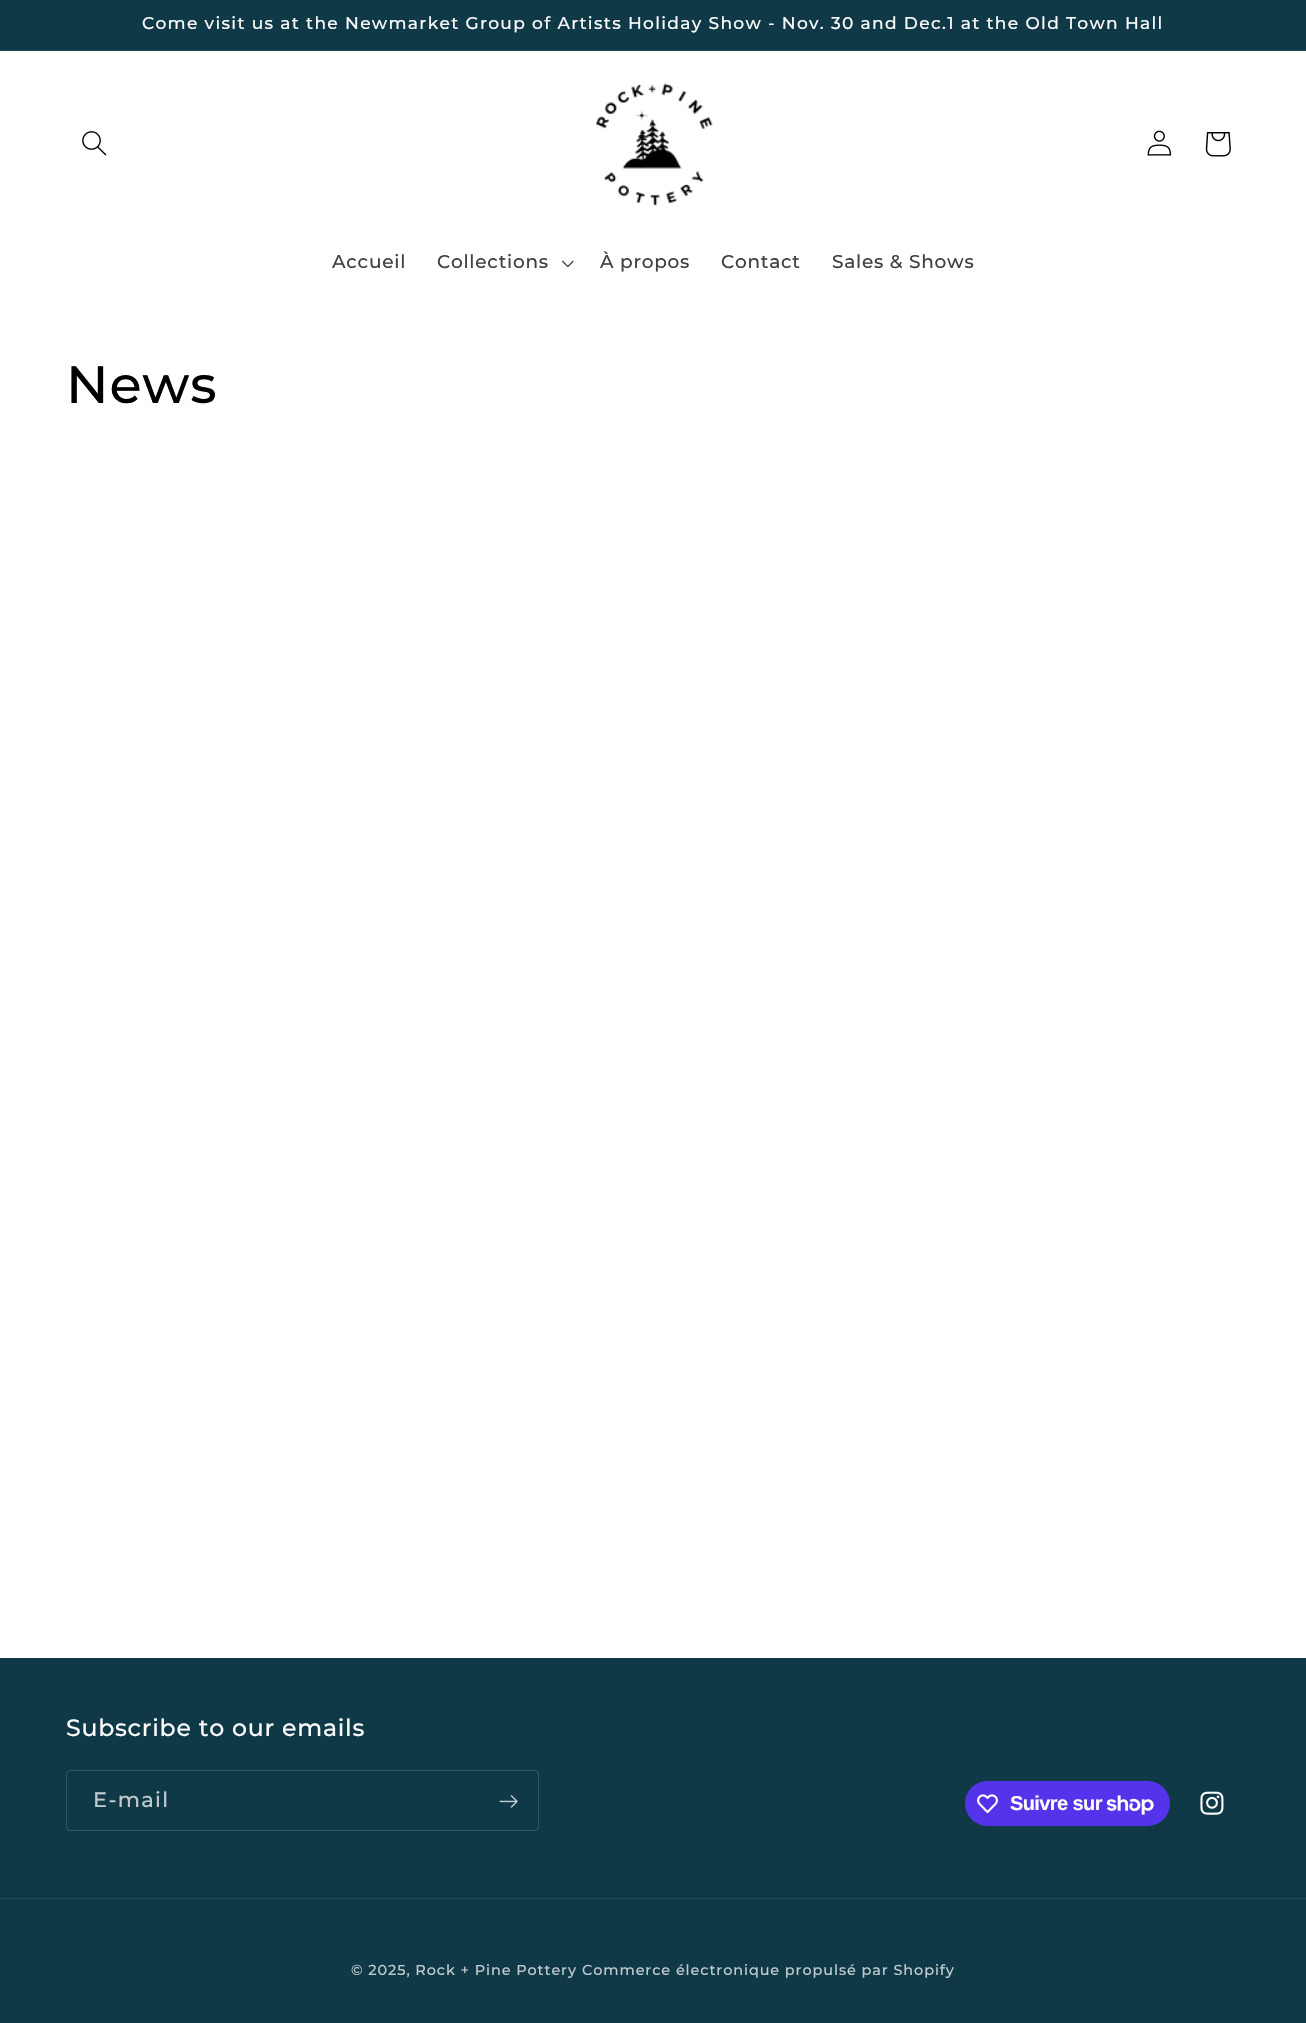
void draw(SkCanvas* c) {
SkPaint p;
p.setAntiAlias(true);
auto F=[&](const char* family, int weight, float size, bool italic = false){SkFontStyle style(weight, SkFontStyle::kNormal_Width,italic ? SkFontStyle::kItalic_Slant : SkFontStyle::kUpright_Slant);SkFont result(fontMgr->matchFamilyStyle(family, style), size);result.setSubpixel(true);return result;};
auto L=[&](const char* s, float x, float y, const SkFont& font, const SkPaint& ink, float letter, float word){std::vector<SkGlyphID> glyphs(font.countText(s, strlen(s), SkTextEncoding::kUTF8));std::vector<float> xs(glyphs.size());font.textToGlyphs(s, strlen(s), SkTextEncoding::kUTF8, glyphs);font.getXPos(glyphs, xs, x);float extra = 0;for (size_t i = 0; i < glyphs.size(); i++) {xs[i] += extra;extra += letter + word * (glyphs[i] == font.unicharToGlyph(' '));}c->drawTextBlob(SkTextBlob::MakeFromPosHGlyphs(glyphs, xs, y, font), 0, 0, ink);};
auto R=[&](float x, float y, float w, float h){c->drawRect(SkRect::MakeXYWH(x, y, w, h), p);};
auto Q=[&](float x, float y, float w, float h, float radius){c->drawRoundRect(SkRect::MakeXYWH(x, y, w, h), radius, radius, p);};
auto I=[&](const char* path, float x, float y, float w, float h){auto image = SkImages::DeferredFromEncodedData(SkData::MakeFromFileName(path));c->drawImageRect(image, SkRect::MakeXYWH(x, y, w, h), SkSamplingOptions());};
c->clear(0xffffffff);
p.setColor(0xff103948);
R(0,0,1306,50);
p.setColor(0xff234956);
R(0,50,1306,1);
auto f1 = F("Montserrat",500,17.05);
p.setColor(0xfffcfcfc);
L("Come visit us at the Newmarket Group of Artists Holiday Show - Nov. 30 and Dec.1 at the Old Town Hall",142,29,f1,p,1.31,0);
I("1.png",82,131,25,25);
I("2.png",596,83,117,123);
I("3.png",1147,130,25,26);
I("4.png",1205,132,26,25);
auto f2 = F("Montserrat",500,18.5);
p.setColor(0xff404040);
L("Accueil",332,268,f2,p,.75,0);
L("Collections",437,268,f2,p,.75,0);
I("5.png",562,260,12,8);
L("À propos",600,268,f2,p,.75,0);
L("Contact",721,268,f2,p,.75,0);
L("Sales & Shows",832,268,f2,p,.75,0);
auto f3 = F("Montserrat",500,52.5);
p.setColor(0xff000000);
L("News",66,403,f3,p,.75,0);
p.setColor(0xff103948);
R(0,1658,1306,365);
auto f4 = F("Montserrat",500,23.6);
p.setColor(0xfffcfcfc);
L("Subscribe to our emails",66,1736,f4,p,.75,0);
p.setStroke(true);
p.setStrokeWidth(1);
p.setColor(0xff335663);
c->drawRoundRect(SkRect::MakeXYWH(66.5,1770.5,472,60),3.5,3.5,p);
auto f5 = F("Montserrat",500,21);
p.setStroke(false);
p.setColor(0xffc1cbcf);
L("E-mail",93,1807,f5,p,1.31,0);
I("6.png",499,1795,19,13);
p.setColor(0xff5433eb);
Q(965,1781,205,45,22.5);
I("7.png",977,1794,21,20);
auto f6 = F("Liberation Sans",700,20);
p.setColor(0xfffcfcfc);
L("Suivre sur",1010,1810,f6,p,-.6,0);
I("8.png",1106,1795,48,20);
I("9.png",1200,1791,24,24);
p.setColor(0xff234956);
R(0,1898,1306,1);
auto f7 = F("Montserrat",500,14.45);
p.setColor(0xffc1cbcf);
L("© 2025, Rock + Pine Pottery",351,1975,f7,p,.9,0);
L("Commerce électronique propulsé par Shopify",582,1975,f7,p,.9,0);
}
